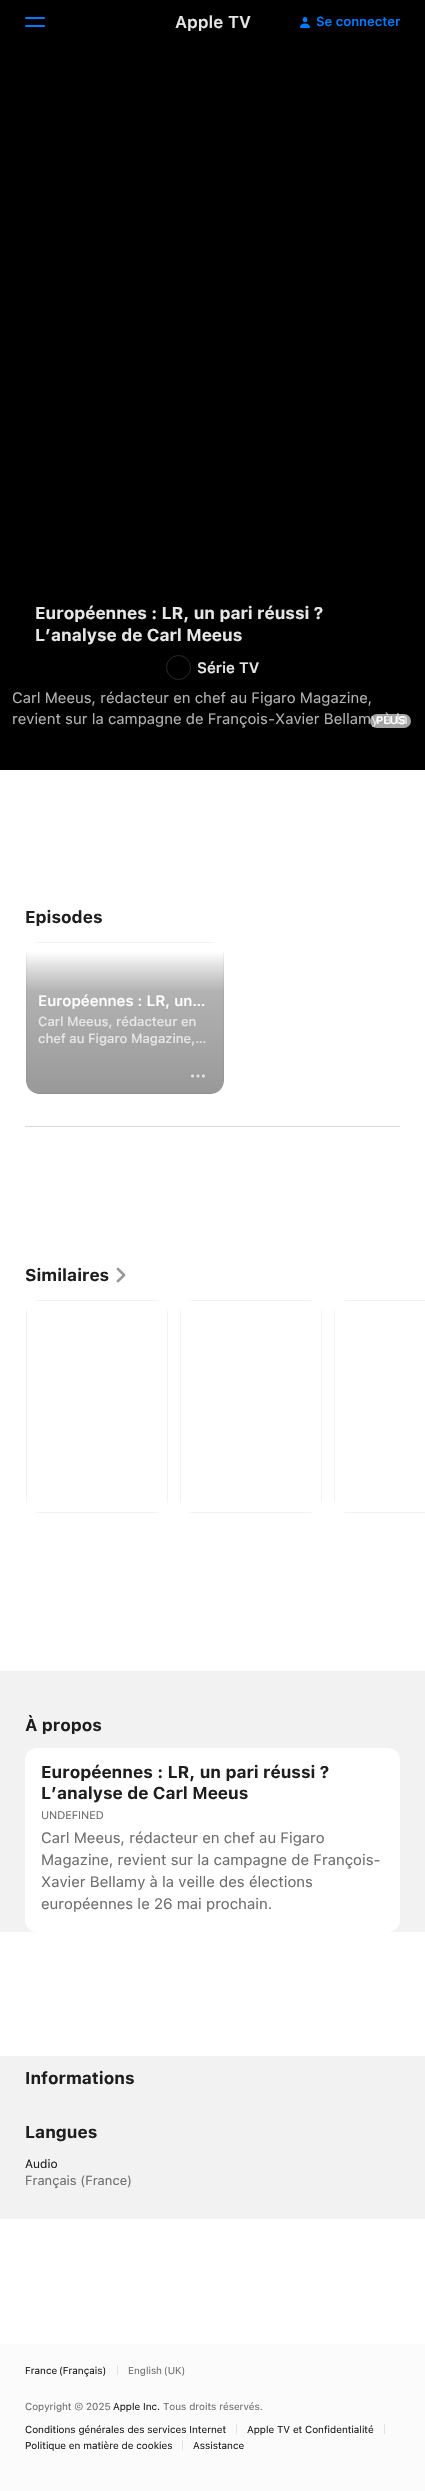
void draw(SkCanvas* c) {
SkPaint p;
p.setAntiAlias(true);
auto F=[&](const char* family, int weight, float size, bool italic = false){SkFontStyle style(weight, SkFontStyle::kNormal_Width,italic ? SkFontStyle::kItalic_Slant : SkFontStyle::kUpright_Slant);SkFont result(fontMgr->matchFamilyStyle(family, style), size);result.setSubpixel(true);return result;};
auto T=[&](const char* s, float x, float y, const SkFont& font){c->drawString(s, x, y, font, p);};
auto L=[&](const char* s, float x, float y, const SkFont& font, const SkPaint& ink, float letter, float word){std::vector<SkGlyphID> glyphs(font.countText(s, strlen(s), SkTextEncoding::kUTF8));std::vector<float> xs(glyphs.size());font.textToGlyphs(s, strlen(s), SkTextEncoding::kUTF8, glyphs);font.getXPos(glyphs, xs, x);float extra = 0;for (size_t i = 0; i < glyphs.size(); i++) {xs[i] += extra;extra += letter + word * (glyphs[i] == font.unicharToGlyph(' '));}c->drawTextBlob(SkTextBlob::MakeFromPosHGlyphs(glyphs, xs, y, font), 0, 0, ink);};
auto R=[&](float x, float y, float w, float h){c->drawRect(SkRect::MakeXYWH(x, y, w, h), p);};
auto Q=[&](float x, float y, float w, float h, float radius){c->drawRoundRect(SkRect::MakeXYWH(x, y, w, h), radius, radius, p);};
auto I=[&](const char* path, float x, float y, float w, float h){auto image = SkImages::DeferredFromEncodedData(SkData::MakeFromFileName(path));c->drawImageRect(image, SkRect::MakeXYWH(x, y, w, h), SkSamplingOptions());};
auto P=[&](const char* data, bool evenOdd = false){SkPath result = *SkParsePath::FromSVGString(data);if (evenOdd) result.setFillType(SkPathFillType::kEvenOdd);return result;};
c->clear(0xffffffff);
p.setColor(0xff000000);
R(0,0,425,770);
p.setColor(0xff007aff);
Q(25,17,20,2,1);
Q(25,25,20,2,1);
auto f1 = F("SF",600,17);
p.setColor(0xffe6e6e6);
T("Apple TV",175,28,f1);
I("1.png",300,17,10,11);
auto f2 = F("SF",600,13);
p.setColor(0xff007aff);
T("Se connecter",316,26,f2);
auto f3 = F("SF",700,17);
p.setColor(0xffe6e6e6);
T("Européennes : LR, un pari réussi ?",35,619,f3);
T("L’analyse de Carl Meeus",35,641,f3);
p.setStroke(true);
p.setStrokeWidth(1);
p.setColor(0xff292929);
c->drawCircle(178.5,667.5,12,p);
auto f4 = F("SF",600,15);
p.setStroke(false);
p.setColor(0xffe6e6e6);
T("Série TV",197,673,f4);
auto f5 = F("SF",400,15);
p.setColor(0xffb3b3b3);
T("Carl Meeus, rédacteur en chef au Figaro Magazine,",12,703,f5);
T("revient sur la campagne de François-Xavier Bellamy à la",12,724,f5);
p.setColor(0xa3ffffff);
Q(370,714,41,14,7);
auto f6 = F("SF",600,11);
p.setColor(0xffffffff);
T("PLUS",376,724,f6);
p.setColor(0xff1e1e1e);
T("Episodes",25,923,f3);
p.setColor(0xfff2f2f2);
c->drawPath(P("M26 955v126l1 5v-136zm13-13l-5 1h182l-5-1zm185 13l-1-5v136l1-5zm-13 139l5-1h-182l5 1z",true),p);
c->save();
c->clipPath(P("M39 942h172c7 0 13 6 13 13v126c0 7-6 13-13 13h-172c-7 0-13-6-13-13v-126c0-7 6-13 13-13z"),true);
{
const SkColor colors[] = {0x00000000,0x21000000,0x36000000,0x4d000000,0x66000000};
const float stops[] = {0,.11,.19,.28,1};
const SkPoint ends[] = {{125,952}, {125,1094}};
p.setShader(SkGradientShader::MakeLinear(ends, colors, stops, 5, SkTileMode::kClamp));
p.setAlpha(255);
}
c->drawPath(P("M26 952h198v129c0 7-6 13-13 13h-172c-7 0-13-6-13-13z"),p);
c->restore();
auto f7 = F("SF",500,15);
p.setShader(nullptr);
p.setColor(0xffffffff);
T("Européennes : LR, un…",38,1006,f7);
auto f8 = F("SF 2",500,13);
p.setColor(0xffe6e6e6);
T("Carl Meeus, rédacteur en",38,1026,f8);
T("chef au Figaro Magazine,…",38,1043,f8);
I("2.png",191,1074,14,4);
p.setColor(0xffd9d9d9);
R(25,1126,375,1);
p.setColor(0xff1e1e1e);
T("Similaires",25,1281,f3);
I("3.png",116,1267,10,16);
p.setColor(0xfff2f2f2);
c->drawPath(P("M26 1313v187l1 5v-197zm13-13l-5 1h126l-5-1zm129 13l-1-5v197l1-5zm-13 200l5-1h-126l5 1z",true),p);
c->drawPath(P("M180 1313v187l1 5v-197zm13-13l-5 1h126l-5-1zm129 13l-1-5v197l1-5zm-13 200l5-1h-126l5 1z",true),p);
c->drawPath(P("M334 1313v187l1 5v-197zm13-13l-5 1h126l-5-1zm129 13l-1-5v197l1-5zm-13 200l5-1h-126l5 1z",true),p);
R(0,1671,425,261);
p.setColor(0xff1e1e1e);
T("À propos",25,1731,f3);
p.setColor(0xffffffff);
Q(25,1748,375,184,12);
p.setColor(0xff1e1e1e);
T("Européennes : LR, un pari réussi ?",41,1778,f3);
T("L’analyse de Carl Meeus",41,1799,f3);
auto f9 = F("SF",400,11);
p.setColor(0xff6e6e6e);
T("UNDEFINED",41,1819,f9);
T("Carl Meeus, rédacteur en chef au Figaro",41,1843,f5);
T("Magazine, revient sur la campagne de François-",41,1865,f5);
T("Xavier Bellamy à la veille des élections",41,1887,f5);
T("européennes le 26 mai prochain.",41,1909,f5);
p.setColor(0xfff2f2f2);
R(0,2056,425,163);
p.setColor(0xff1e1e1e);
T("Informations",25,2084,f3);
T("Langues",25,2138,f3);
auto f10 = F("SF",400,12);
T("Audio",25,2168,f10);
auto f11 = F("SF",400,13);
p.setColor(0xff6e6e6e);
T("Français (France)",25,2185,f11);
p.setColor(0xfffbfbfb);
R(0,2344,425,147);
auto f12 = F("SF",400,10);
p.setColor(0xff1e1e1e);
L("France (Français)",25,2374,f12,p,0,-1);
p.setColor(0xffe2e2e2);
R(117,2365,1,10);
p.setColor(0xff6e6e6e);
L("English (UK)",128,2374,f12,p,0,-1);
T("Copyright © 2025",25,2410,f12);
p.setColor(0xff1e1e1e);
T("Apple Inc.",113,2410,f12);
p.setColor(0xff6e6e6e);
T("Tous droits réservés.",163,2410,f12);
p.setColor(0xff1e1e1e);
T("Conditions générales des services Internet",25,2433,f12);
p.setColor(0xffe2e2e2);
R(236,2424,1,10);
p.setColor(0xff1e1e1e);
T("Apple TV et Confidentialité",247,2433,f12);
p.setColor(0xffe2e2e2);
R(384,2424,1,10);
p.setColor(0xff1e1e1e);
T("Politique en matière de cookies",25,2449,f12);
p.setColor(0xffe2e2e2);
R(182,2440,1,10);
p.setColor(0xff1e1e1e);
T("Assistance",193,2449,f12);
}
